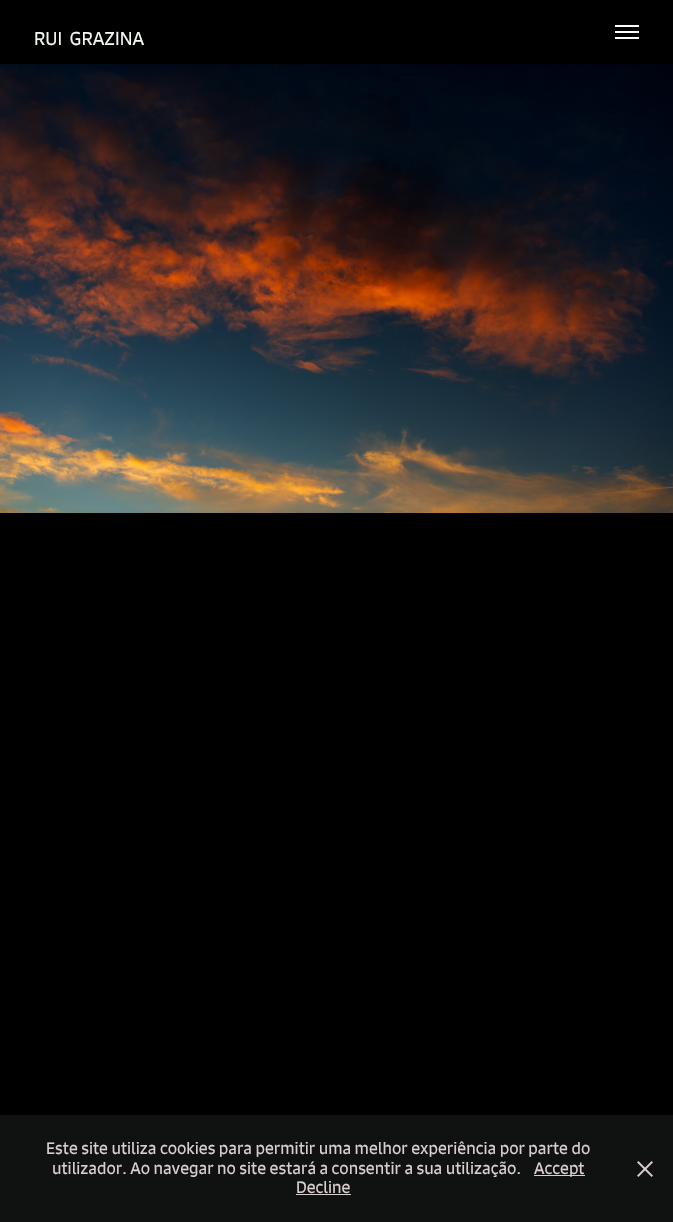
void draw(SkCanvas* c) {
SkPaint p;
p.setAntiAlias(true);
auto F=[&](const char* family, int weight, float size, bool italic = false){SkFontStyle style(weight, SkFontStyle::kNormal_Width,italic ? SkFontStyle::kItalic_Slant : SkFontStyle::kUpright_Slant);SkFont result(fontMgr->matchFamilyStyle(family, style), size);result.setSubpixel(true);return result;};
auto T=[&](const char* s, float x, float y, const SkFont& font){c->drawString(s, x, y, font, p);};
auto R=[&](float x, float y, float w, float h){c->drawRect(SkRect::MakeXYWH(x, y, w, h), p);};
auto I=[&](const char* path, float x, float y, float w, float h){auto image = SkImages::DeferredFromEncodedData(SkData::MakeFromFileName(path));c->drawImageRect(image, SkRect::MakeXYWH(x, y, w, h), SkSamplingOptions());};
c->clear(0xff000000);
auto f1 = F("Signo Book",400,18);
p.setColor(0xfff4f8f2);
T("RUI  GRAZINA",34,45,f1);
p.setColor(0xffffffff);
R(615,25,24,2);
R(615,31,24,2);
R(615,37,24,2);
I("1.png",0,64,673,449);
p.setColor(0xff101111);
R(0,1115,673,107);
auto f2 = F("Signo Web",400,16);
p.setColor(0xffdacfcf);
T("Este site utiliza cookies para permitir uma melhor experiência por parte do",46,1154,f2);
T("utilizador. Ao navegar no site estará a consentir a sua utilização.",52,1174,f2);
R(534,1175,51,1);
T("Accept",534,1174,f2);
T("Decline",296,1193,f2);
R(296,1194,55,1);
I("2.png",637,1161,16,16);
}
